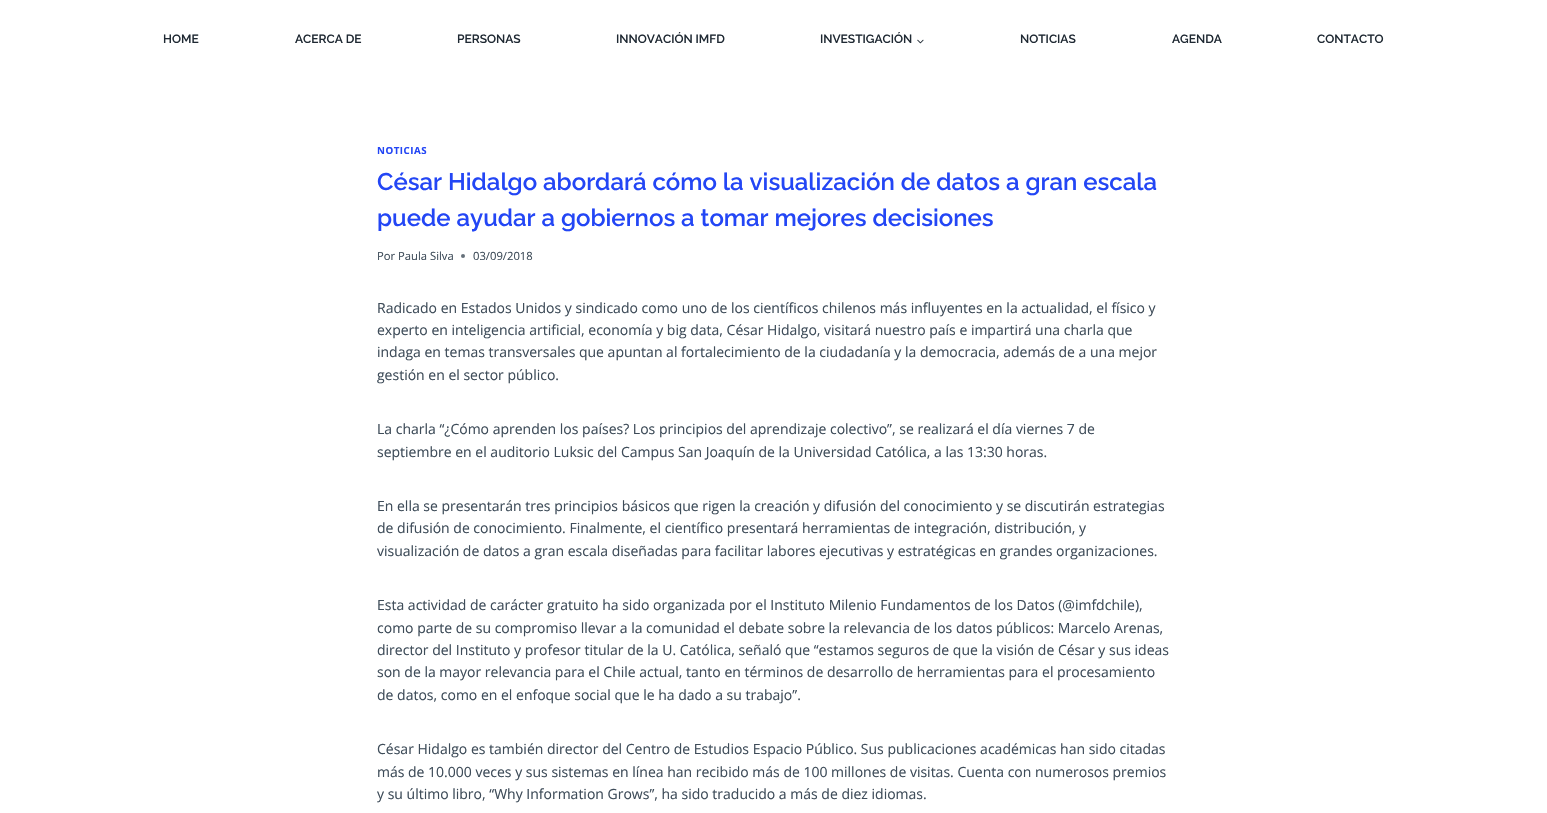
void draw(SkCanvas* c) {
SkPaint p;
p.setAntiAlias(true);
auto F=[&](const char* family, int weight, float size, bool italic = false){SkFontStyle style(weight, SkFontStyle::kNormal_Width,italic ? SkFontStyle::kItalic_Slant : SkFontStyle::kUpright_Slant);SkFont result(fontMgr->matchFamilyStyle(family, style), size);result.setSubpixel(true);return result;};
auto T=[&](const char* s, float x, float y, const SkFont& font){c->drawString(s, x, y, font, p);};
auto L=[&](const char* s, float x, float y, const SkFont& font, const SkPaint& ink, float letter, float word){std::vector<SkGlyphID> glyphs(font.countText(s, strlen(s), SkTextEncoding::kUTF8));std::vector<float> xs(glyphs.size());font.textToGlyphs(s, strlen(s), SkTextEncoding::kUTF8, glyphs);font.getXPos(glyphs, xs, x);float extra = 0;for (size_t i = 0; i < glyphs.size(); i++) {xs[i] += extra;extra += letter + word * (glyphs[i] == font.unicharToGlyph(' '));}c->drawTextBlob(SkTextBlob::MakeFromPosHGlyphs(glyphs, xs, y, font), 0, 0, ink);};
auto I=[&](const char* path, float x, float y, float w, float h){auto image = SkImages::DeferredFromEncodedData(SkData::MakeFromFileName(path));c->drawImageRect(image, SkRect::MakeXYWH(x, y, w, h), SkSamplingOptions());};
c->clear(0xffffffff);
auto f1 = F("Raleway",600,12);
p.setColor(0xff1f2933);
T("HOME",163,43,f1);
T("ACERCA DE",295,43,f1);
T("PERSONAS",457,43,f1);
T("INNOVACIÓN IMFD",616,43,f1);
T("INVESTIGACIÓN",820,43,f1);
I("1.png",917,39,7,5);
T("NOTICIAS",1020,43,f1);
T("AGENDA",1172,43,f1);
T("CONTACTO",1317,43,f1);
auto f2 = F("Open Sans",700,9.75);
p.setColor(0xff2346f5);
L("NOTICIAS",377,154,f2,p,.5,0);
auto f3 = F("Raleway",600,24);
T("César Hidalgo abordará cómo la visualización de datos a gran escala",377,190,f3);
T("puede ayudar a gobiernos a tomar mejores decisiones",377,226,f3);
auto f4 = F("Open Sans",400,11.25);
p.setColor(0xff3e4c59);
T("Por Paula Silva",377,260,f4);
p.setColor(0xff65707a);
c->drawCircle(463,256,2,p);
p.setColor(0xff3e4c59);
T("03/09/2018",473,260,f4);
auto f5 = F("Open Sans",400,14);
T("Radicado en Estados Unidos y sindicado como uno de los científicos chilenos más influyentes en la actualidad, el físico y",377,313,f5);
T("experto en inteligencia artificial, economía y big data, César Hidalgo, visitará nuestro país e impartirá una charla que",377,335,f5);
T("indaga en temas transversales que apuntan al fortalecimiento de la ciudadanía y la democracia, además de a una mejor",377,357,f5);
T("gestión en el sector público.",377,380,f5);
T("La charla “¿Cómo aprenden los países? Los principios del aprendizaje colectivo”, se realizará el día viernes 7 de",377,434,f5);
T("septiembre en el auditorio Luksic del Campus San Joaquín de la Universidad Católica, a las 13:30 horas.",377,457,f5);
T("En ella se presentarán tres principios básicos que rigen la creación y difusión del conocimiento y se discutirán estrategias",377,511,f5);
T("de difusión de conocimiento. Finalmente, el científico presentará herramientas de integración, distribución, y",377,533,f5);
T("visualización de datos a gran escala diseñadas para facilitar labores ejecutivas y estratégicas en grandes organizaciones.",377,556,f5);
T("Esta actividad de carácter gratuito ha sido organizada por el Instituto Milenio Fundamentos de los Datos (@imfdchile),",377,610,f5);
T("como parte de su compromiso llevar a la comunidad el debate sobre la relevancia de los datos públicos: Marcelo Arenas,",377,633,f5);
T("director del Instituto y profesor titular de la U. Católica, señaló que “estamos seguros de que la visión de César y sus ideas",377,655,f5);
T("son de la mayor relevancia para el Chile actual, tanto en términos de desarrollo de herramientas para el procesamiento",377,677,f5);
T("de datos, como en el enfoque social que le ha dado a su trabajo”.",377,700,f5);
T("César Hidalgo es también director del Centro de Estudios Espacio Público. Sus publicaciones académicas han sido citadas",377,754,f5);
T("más de 10.000 veces y sus sistemas en línea han recibido más de 100 millones de visitas. Cuenta con numerosos premios",377,777,f5);
T("y su último libro, “Why Information Grows”, ha sido traducido a más de diez idiomas.",377,799,f5);
}
